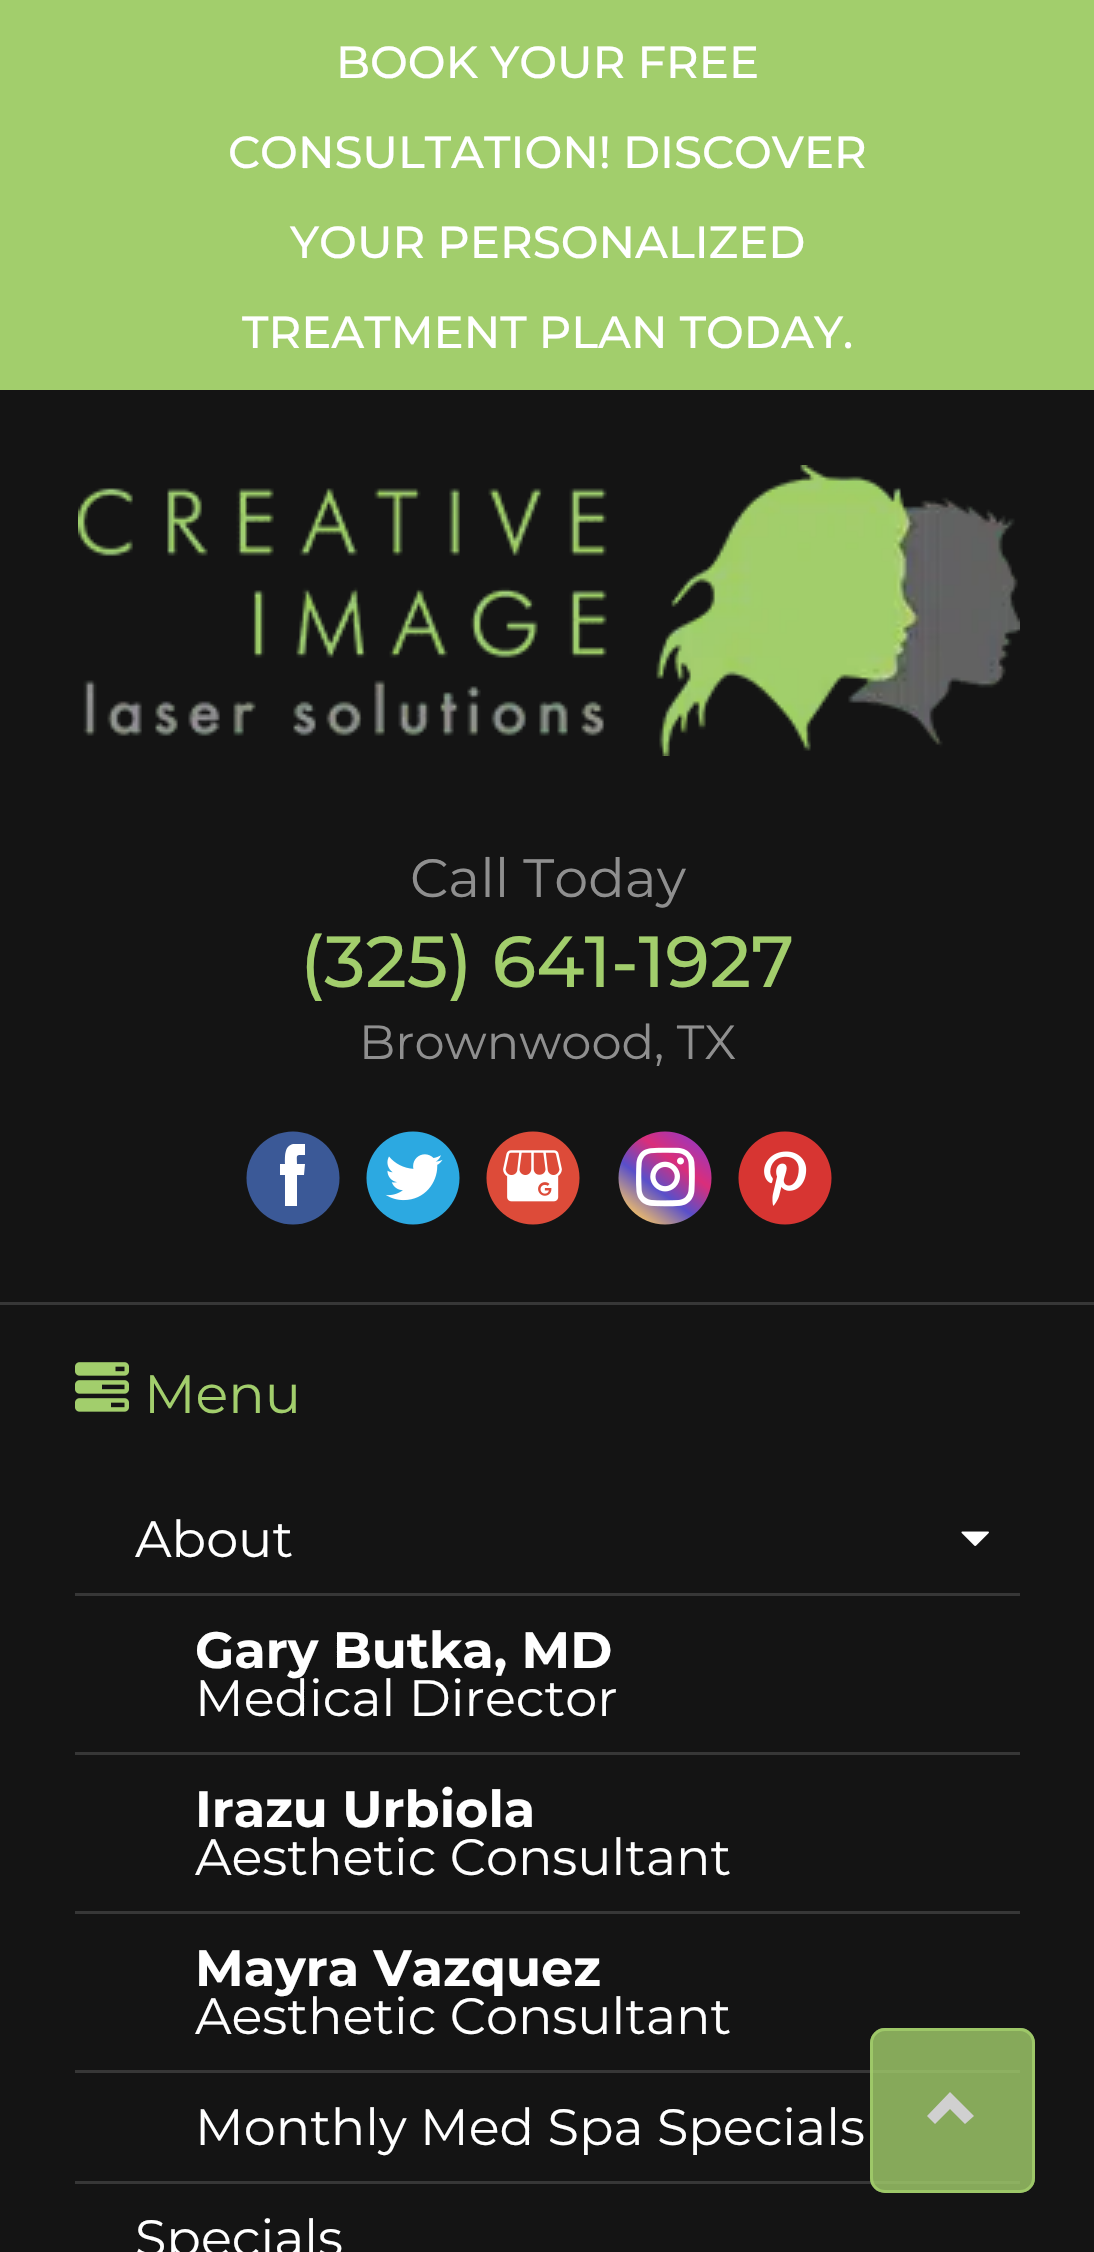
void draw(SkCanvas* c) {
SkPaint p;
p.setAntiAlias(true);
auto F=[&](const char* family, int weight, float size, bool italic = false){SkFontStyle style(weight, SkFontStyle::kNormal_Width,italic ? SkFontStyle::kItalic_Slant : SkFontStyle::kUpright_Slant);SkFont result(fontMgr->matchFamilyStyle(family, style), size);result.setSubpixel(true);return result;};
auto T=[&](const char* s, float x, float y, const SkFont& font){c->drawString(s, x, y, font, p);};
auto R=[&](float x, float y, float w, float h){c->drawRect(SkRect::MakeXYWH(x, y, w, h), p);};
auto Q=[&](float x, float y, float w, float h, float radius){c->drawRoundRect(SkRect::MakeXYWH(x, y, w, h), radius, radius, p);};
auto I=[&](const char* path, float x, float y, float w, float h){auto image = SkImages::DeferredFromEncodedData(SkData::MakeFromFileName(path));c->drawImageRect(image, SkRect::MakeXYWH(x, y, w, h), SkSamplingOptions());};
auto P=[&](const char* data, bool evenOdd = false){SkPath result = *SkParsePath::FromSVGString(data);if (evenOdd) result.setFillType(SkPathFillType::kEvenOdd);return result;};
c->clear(0xffa2ce6c);
auto f1 = F("Montserrat",500,45);
p.setColor(0xffffffff);
T("BOOK YOUR FREE",336,78,f1);
T("CONSULTATION! DISCOVER",228,168,f1);
T("YOUR PERSONALIZED",290,258,f1);
T("TREATMENT PLAN TODAY.",242,348,f1);
p.setColor(0xff141414);
R(0,390,1094,912);
I("1.png",78,465,942,291);
auto f2 = F("Montserrat",400,54);
p.setColor(0xff8f8f8f);
T("Call Today",410,897,f2);
auto f3 = F("Montserrat",500,72);
p.setColor(0xffa2ce6c);
T("(325) 641-1927",300,987,f3);
auto f4 = F("Montserrat",400,48);
p.setColor(0xff8f8f8f);
T("Brownwood, TX",359,1059,f4);
p.setColor(0xff3b5997);
c->drawCircle(293,1178,46.5,p);
p.setColor(0xffffffff);
c->drawPath(P("M285 1175h-5v-11h5c0-7-1-18 8-20h12v11c-10 0-8-1-8 9h8l-1 11h-7v31h-12z"),p);
I("2.png",366,1131,94,94);
I("3.png",486,1131,94,94);
I("4.png",618,1131,94,94);
I("5.png",738,1131,94,94);
p.setColor(0xff141414);
R(0,1305,1094,947);
p.setColor(0xff373737);
R(0,1302,1094,3);
I("6.png",75,1362,54,50);
p.setColor(0xffa2ce6c);
T("Menu",144,1413,f2);
p.setColor(0xff373737);
R(75,1593,945,3);
auto f5 = F("Montserrat",400,51);
p.setColor(0xffffffff);
T("About",135,1557,f5);
I("7.png",961,1531,28,15);
p.setColor(0xff373737);
R(75,1752,945,3);
auto f6 = F("Montserrat",700,51);
p.setColor(0xffffffff);
T("Gary Butka, MD",195,1668,f6);
T("Medical Director",195,1716,f5);
p.setColor(0xff373737);
R(75,1911,945,3);
p.setColor(0xffffffff);
T("Irazu Urbiola",195,1827,f6);
T("Aesthetic Consultant",195,1875,f5);
p.setColor(0xff373737);
R(75,2070,945,3);
p.setColor(0xffffffff);
T("Mayra Vazquez",195,1986,f6);
T("Aesthetic Consultant",195,2034,f5);
p.setColor(0xff373737);
R(75,2181,945,3);
p.setColor(0xffffffff);
T("Monthly Med Spa Specials",195,2145,f5);
T("Specials",135,2256,f5);
p.setColor(0xcca2ce6c);
Q(870,2028,165,165,15);
p.setStroke(true);
p.setStrokeWidth(3);
c->drawRoundRect(SkRect::MakeXYWH(871.5,2029.5,162,162),13.5,13.5,p);
p.setStroke(false);
p.setColor(0xffd0d0d0);
c->drawPath(P("M974 2116l-9 8l-15-15l-15 15l-8-8l23-24z"),p);
}
